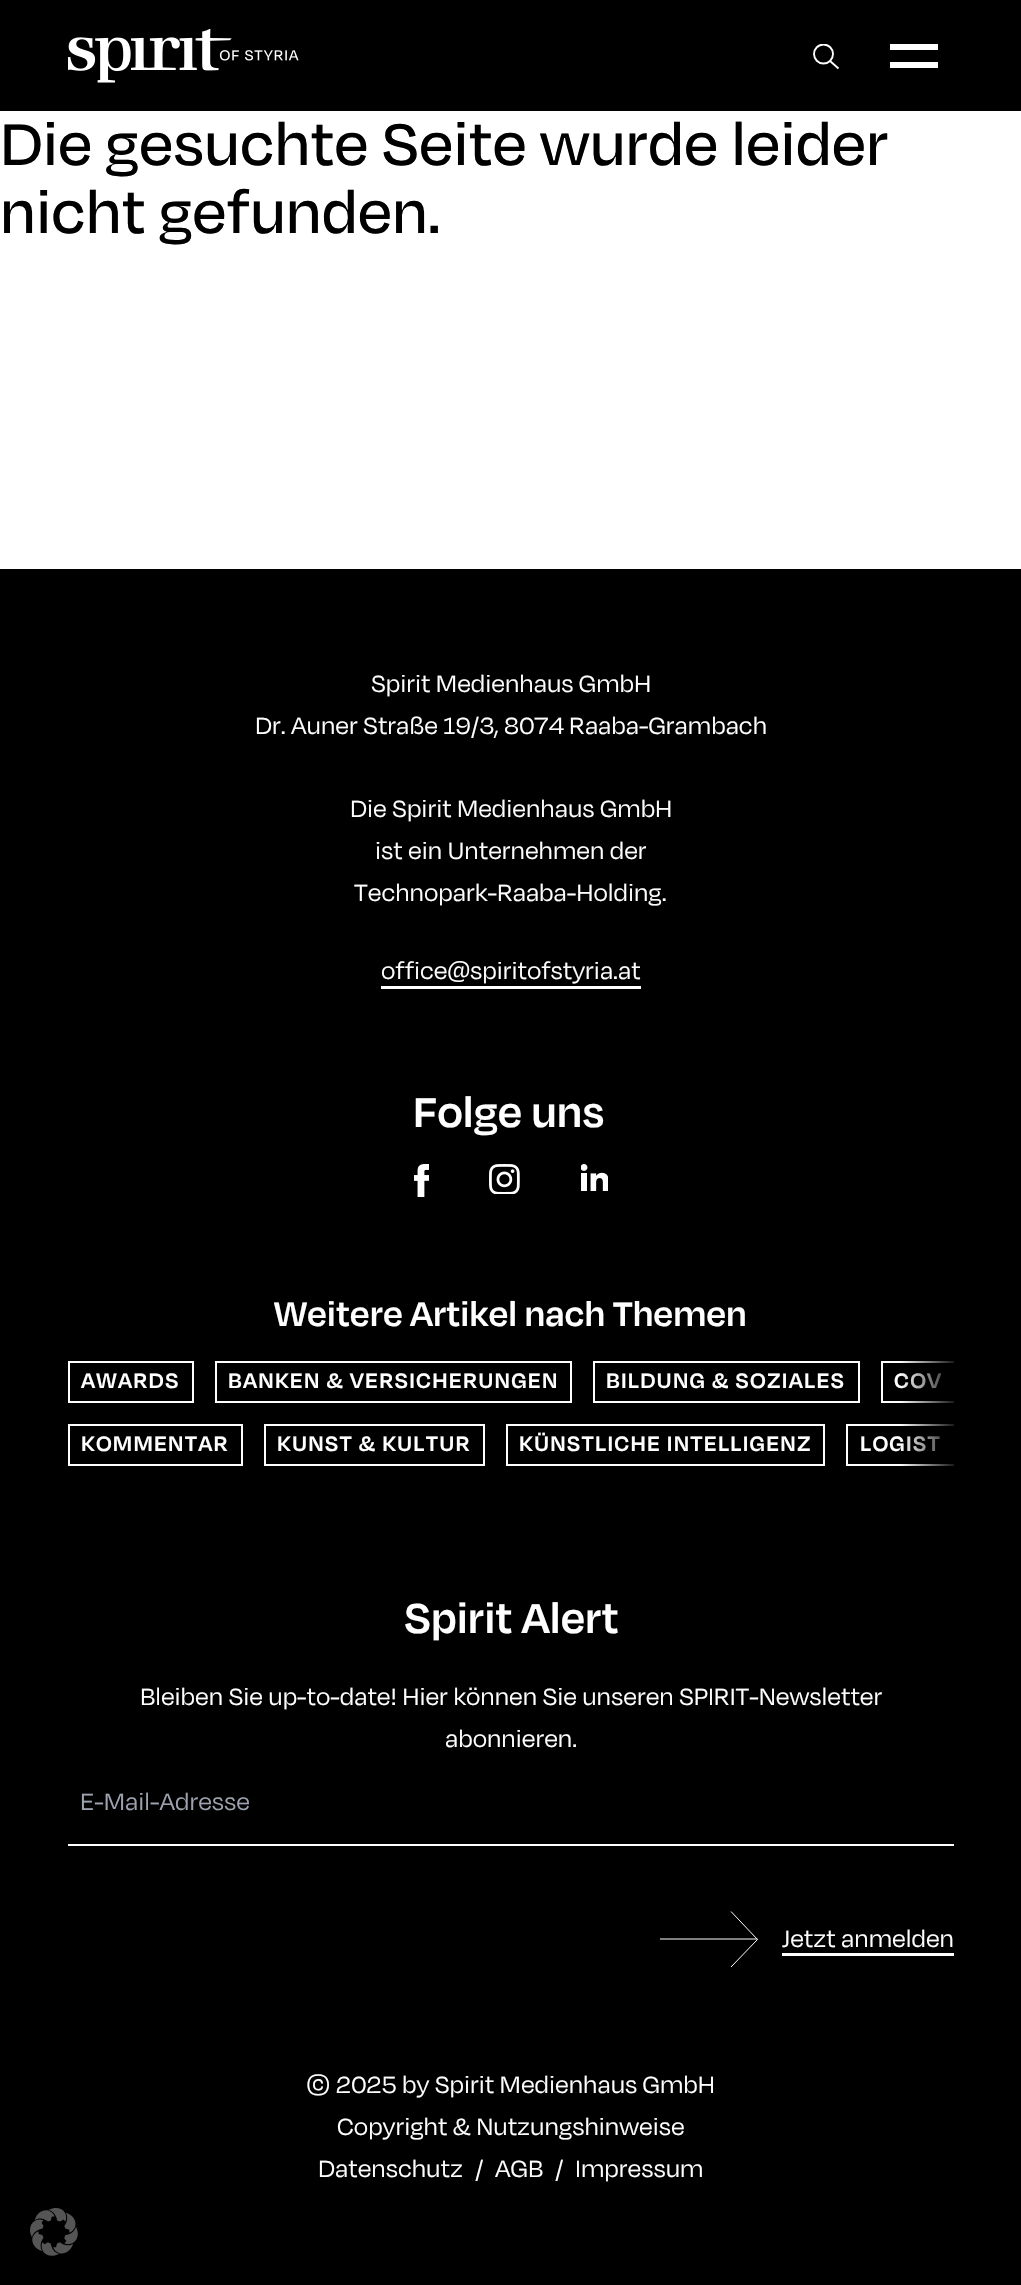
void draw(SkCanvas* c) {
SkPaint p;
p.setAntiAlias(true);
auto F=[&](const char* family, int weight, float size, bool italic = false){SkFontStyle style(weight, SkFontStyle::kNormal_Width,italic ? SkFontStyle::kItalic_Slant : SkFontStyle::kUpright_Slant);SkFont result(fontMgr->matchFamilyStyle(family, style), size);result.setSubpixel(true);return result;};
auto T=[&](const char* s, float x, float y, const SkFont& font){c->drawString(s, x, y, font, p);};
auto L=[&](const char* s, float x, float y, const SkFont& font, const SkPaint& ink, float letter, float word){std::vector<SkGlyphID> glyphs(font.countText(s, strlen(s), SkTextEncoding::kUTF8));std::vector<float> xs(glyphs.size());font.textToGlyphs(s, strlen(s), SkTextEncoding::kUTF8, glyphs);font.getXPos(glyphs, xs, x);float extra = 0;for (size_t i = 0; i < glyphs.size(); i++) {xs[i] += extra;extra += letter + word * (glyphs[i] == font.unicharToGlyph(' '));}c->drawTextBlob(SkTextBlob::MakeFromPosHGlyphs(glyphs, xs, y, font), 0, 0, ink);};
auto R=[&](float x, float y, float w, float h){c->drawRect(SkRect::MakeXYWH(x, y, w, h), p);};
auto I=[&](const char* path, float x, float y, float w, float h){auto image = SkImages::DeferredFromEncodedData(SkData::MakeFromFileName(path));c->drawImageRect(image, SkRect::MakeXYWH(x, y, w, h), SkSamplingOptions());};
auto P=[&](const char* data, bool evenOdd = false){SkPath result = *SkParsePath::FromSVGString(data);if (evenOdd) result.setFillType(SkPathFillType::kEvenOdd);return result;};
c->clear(0xffffffff);
p.setColor(0xff000000);
R(0,0,1021,111);
I("1.png",68,29,231,54);
c->save();
c->clipRect(SkRect::MakeXYWH(806,44,42,25));
p.setStroke(true);
p.setStrokeWidth(1.9);
p.setColor(0xffffffff);
c->drawCircle(823.5,54,9.5,p);
c->restore();
c->drawPath(P("M830 61l8.5 7.5"),p);
p.setStroke(false);
R(890,44,48,6);
R(890,62,48,6);
auto f1 = F("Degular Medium",500,67.5);
p.setColor(0xff000000);
T("Die gesuchte Seite wurde leider",0,165,f1);
T("nicht gefunden.",0,233,f1);
R(0,569,1021,1716);
auto f2 = F("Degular",400,27);
p.setColor(0xffffffff);
T("Spirit Medienhaus GmbH",371,692,f2);
T("Dr. Auner Straße 19/3, 8074 Raaba-Grambach",255,734,f2);
T("Die Spirit Medienhaus GmbH",350,817,f2);
T("ist ein Unternehmen der",375,859,f2);
T("Technopark-Raaba-Holding.",354,901,f2);
T("office@spiritofstyria.at",381,979,f2);
R(381,986,260,3);
auto f3 = F("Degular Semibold",600,48);
T("Folge uns",413,1127,f3);
I("2.png",414,1164,15,33);
I("3.png",489,1164,31,30);
I("4.png",581,1164,27,27);
auto f4 = F("Degular Semibold",600,39);
T("Weitere Artikel nach Themen",274,1326,f4);
p.setStroke(true);
p.setStrokeWidth(2);
c->drawRect(SkRect::MakeXYWH(69,1362,124,40),p);
auto f5 = F("Degular Semibold",600,24);
p.setStroke(false);
L("AWARDS",81,1388,f5,p,1.2,0);
p.setStroke(true);
c->drawRect(SkRect::MakeXYWH(216,1362,355,40),p);
p.setStroke(false);
L("BANKEN & VERSICHERUNGEN",228,1388,f5,p,1.2,0);
p.setStroke(true);
c->drawRect(SkRect::MakeXYWH(594,1362,265,40),p);
p.setStroke(false);
L("BILDUNG & SOZIALES",606,1388,f5,p,1.2,0);
c->save();
c->clipRect(SkRect::MakeXYWH(68,1361,886,135));
p.setStroke(true);
c->drawRect(SkRect::MakeXYWH(882,1362,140,40),p);
c->restore();
p.setStroke(false);
L("COV",894,1388,f5,p,1.2,0);
c->save();
c->clipRect(SkRect::MakeXYWH(68,1361,886,135));
p.setStroke(true);
c->drawRect(SkRect::MakeXYWH(847,1425,129,40),p);
c->restore();
p.setStroke(false);
L("LOGIST",860,1451,f5,p,1.2,0);
{
const SkColor colors[] = {0xff000000,0x00000000};
const float stops[] = {0,1};
const SkPoint ends[] = {{960,1428}, {900,1428}};
p.setShader(SkGradientShader::MakeLinear(ends, colors, stops, 2, SkTileMode::kClamp));
p.setAlpha(255);
}
R(901,1361,53,105);
p.setStroke(true);
p.setShader(nullptr);
p.setColor(0xffffffff);
c->drawRect(SkRect::MakeXYWH(69,1425,173,40),p);
p.setStroke(false);
L("KOMMENTAR",81,1451,f5,p,1.2,0);
p.setStroke(true);
c->drawRect(SkRect::MakeXYWH(265,1425,219,40),p);
p.setStroke(false);
L("KUNST & KULTUR",277,1451,f5,p,1.2,0);
p.setStroke(true);
c->drawRect(SkRect::MakeXYWH(507,1425,317,40),p);
p.setStroke(false);
L("KÜNSTLICHE INTELLIGENZ",519,1451,f5,p,1.2,0);
T("Spirit Alert",404,1633,f3);
T("Bleiben Sie up-to-date! Hier können Sie unseren SPIRIT-Newsletter",140,1705,f2);
T("abonnieren.",445,1747,f2);
R(68,1844,886,2);
p.setColor(0xff9ca3af);
T("E-Mail-Adresse",80,1810,f2);
p.setStroke(true);
p.setStrokeWidth(1);
p.setColor(0xffffffff);
c->drawPath(P("M731 1911.5l26.5 28l-26.5 27.5"),p);
c->drawPath(P("M757.5 1939h-97.5"),p);
p.setStroke(false);
T("Jetzt anmelden",782,1947,f2);
R(782,1953,172,3);
T("© 2025 by Spirit Medienhaus GmbH",306,2093,f2);
T("Copyright & Nutzungshinweise",337,2135,f2);
T("Datenschutz",318,2177,f2);
T("/",475,2177,f2);
T("AGB",495,2177,f2);
T("/",555,2177,f2);
T("Impressum",575,2177,f2);
I("5.png",30,2208,48,48);
}
